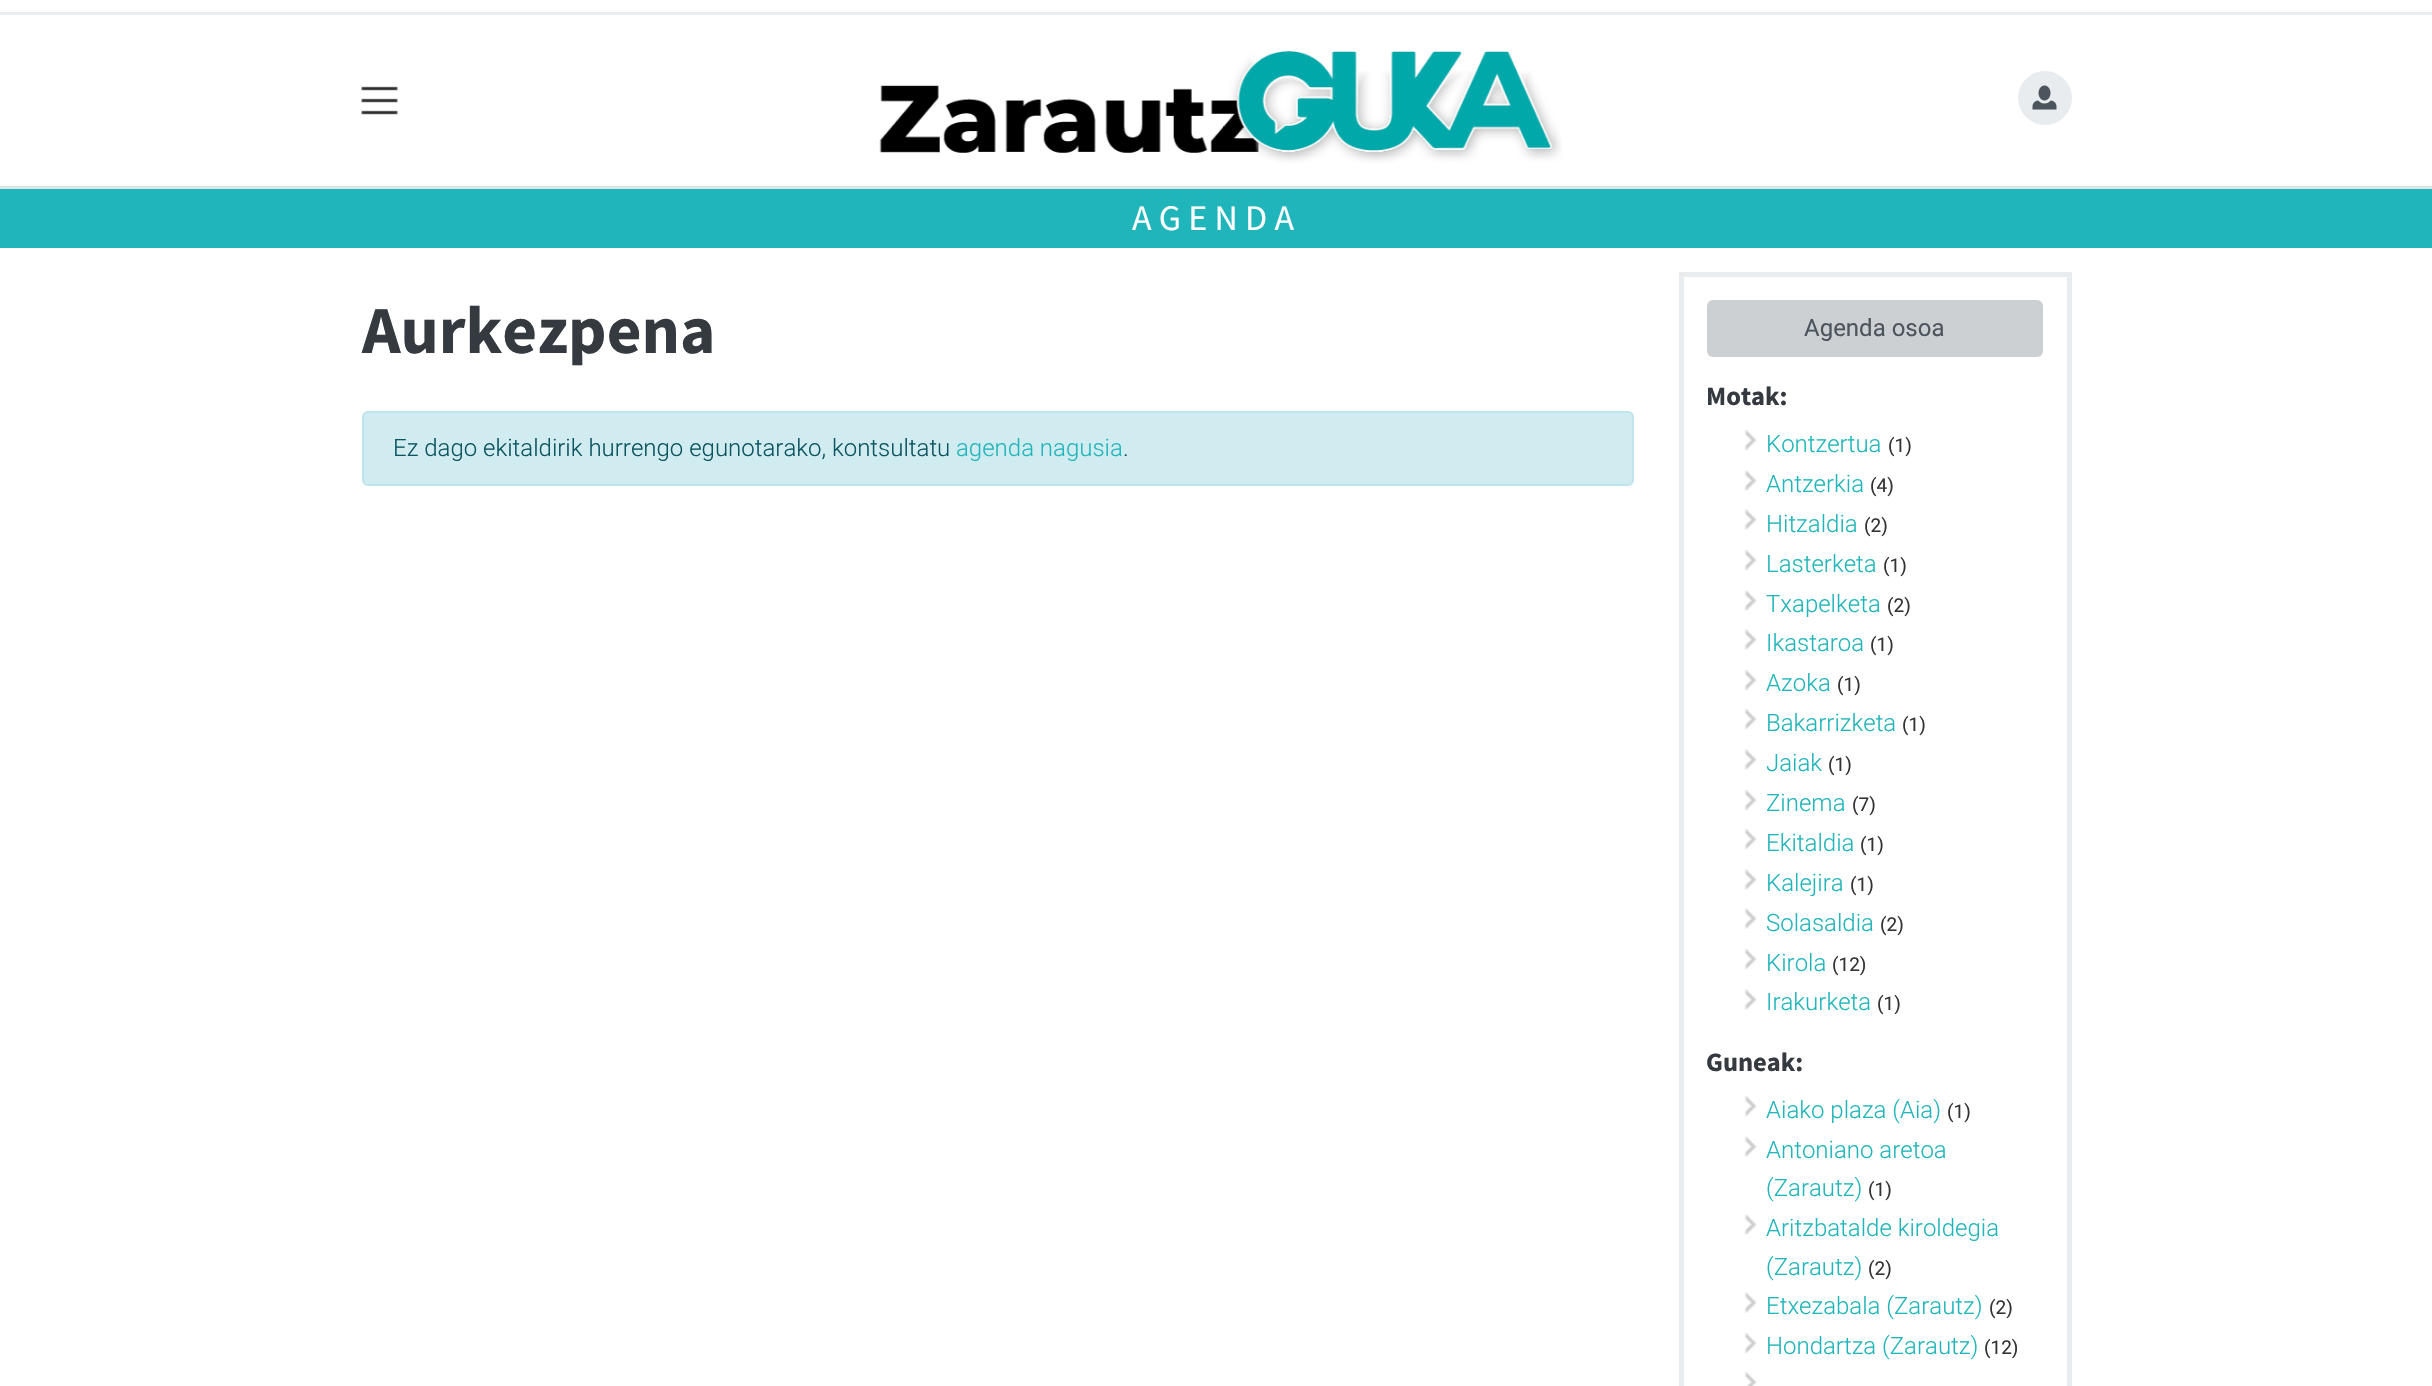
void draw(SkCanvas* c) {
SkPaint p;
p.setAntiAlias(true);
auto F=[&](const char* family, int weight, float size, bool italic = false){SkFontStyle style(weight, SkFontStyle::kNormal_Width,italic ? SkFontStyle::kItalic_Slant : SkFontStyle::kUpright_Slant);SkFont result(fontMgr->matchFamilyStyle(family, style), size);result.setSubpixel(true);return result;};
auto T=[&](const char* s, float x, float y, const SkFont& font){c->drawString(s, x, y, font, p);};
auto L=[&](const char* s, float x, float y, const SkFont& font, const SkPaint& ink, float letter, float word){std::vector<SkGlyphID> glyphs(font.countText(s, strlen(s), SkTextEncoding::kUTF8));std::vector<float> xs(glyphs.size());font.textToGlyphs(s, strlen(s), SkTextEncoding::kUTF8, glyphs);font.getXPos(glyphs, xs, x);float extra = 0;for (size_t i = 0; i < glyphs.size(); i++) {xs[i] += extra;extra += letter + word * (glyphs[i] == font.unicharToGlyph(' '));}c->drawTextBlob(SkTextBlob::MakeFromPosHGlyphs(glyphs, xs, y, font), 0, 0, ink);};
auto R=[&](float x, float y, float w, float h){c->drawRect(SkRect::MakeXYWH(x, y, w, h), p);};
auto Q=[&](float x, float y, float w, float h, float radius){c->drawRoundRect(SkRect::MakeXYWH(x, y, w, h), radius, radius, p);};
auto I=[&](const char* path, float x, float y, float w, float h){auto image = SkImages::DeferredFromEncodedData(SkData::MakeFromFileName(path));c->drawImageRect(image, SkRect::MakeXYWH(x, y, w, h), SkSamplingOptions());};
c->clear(0xffffffff);
p.setColor(0xffe9ecef);
R(0,12,2432,3);
I("1.png",361,86,37,29);
I("2.png",879,51,683,112);
c->drawCircle(2045,98,27,p);
I("3.png",2032,85,25,25);
p.setColor(0xffdee2e6);
R(0,186,2432,3);
p.setColor(0xff20b5ba);
R(0,189,2432,59);
auto f1 = F("Source Sans Pro",400,36);
p.setColor(0xffffffff);
L("AGENDA",1132,230,f1,p,7.25,0);
auto f2 = F("Source Sans Pro",700,67.25);
p.setColor(0xff343a40);
T("Aurkezpena",362,353,f2);
p.setColor(0xffd1ecf1);
c->drawRoundRect(SkRect::MakeXYWH(363,412,1270,73),5,5,p);
p.setStroke(true);
p.setStrokeWidth(2);
p.setColor(0xffbee5eb);
c->drawRoundRect(SkRect::MakeXYWH(363,412,1270,73),5,5,p);
auto f3 = F("Roboto",300,24);
p.setStroke(false);
p.setColor(0xff0c5460);
T("Ez dago ekitaldirik hurrengo egunotarako, kontsultatu",393,456,f3);
p.setColor(0xff20b5ba);
T("agenda nagusia",956,456,f3);
p.setColor(0xff0c5460);
T(".",1123,456,f3);
p.setStroke(true);
p.setStrokeWidth(5);
p.setColor(0xffe9ecef);
c->drawRect(SkRect::MakeXYWH(1681.5,274.5,388,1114),p);
p.setStroke(false);
p.setColor(0xffcdd0d3);
Q(1707,300,336,57,6);
auto f4 = F("Roboto",400,24);
p.setColor(0xff4c545d);
T("Agenda osoa",1804,336,f4);
auto f5 = F("Source Sans Pro",700,26.5);
p.setColor(0xff343a40);
T("Motak:",1706,405,f5);
I("4.png",1744,429,13,22);
p.setColor(0xff20b5ba);
T("Kontzertua",1766,452,f3);
auto f6 = F("Roboto",400,19);
p.setColor(0xff333333);
T("(1)",1888,452,f6);
I("5.png",1744,470,13,21);
p.setColor(0xff20b5ba);
T("Antzerkia",1766,492,f3);
p.setColor(0xff333333);
T("(4)",1870,492,f6);
I("5.png",1744,509,13,21);
p.setColor(0xff20b5ba);
T("Hitzaldia",1766,532,f3);
p.setColor(0xff333333);
T("(2)",1864,532,f6);
I("4.png",1744,549,13,22);
p.setColor(0xff20b5ba);
T("Lasterketa",1766,572,f3);
p.setColor(0xff333333);
T("(1)",1883,572,f6);
I("5.png",1744,590,13,21);
p.setColor(0xff20b5ba);
T("Txapelketa",1766,612,f3);
p.setColor(0xff333333);
T("(2)",1887,612,f6);
I("5.png",1744,629,13,21);
p.setColor(0xff20b5ba);
T("Ikastaroa",1766,651,f3);
p.setColor(0xff333333);
T("(1)",1870,651,f6);
I("4.png",1744,669,13,22);
p.setColor(0xff20b5ba);
T("Azoka",1766,691,f3);
p.setColor(0xff333333);
T("(1)",1837,691,f6);
I("4.png",1744,708,13,22);
p.setColor(0xff20b5ba);
T("Bakarrizketa",1766,731,f3);
p.setColor(0xff333333);
T("(1)",1902,731,f6);
I("5.png",1744,749,13,21);
p.setColor(0xff20b5ba);
T("Jaiak",1766,771,f3);
p.setColor(0xff333333);
T("(1)",1828,771,f6);
I("4.png",1744,789,13,22);
p.setColor(0xff20b5ba);
T("Zinema",1766,811,f3);
p.setColor(0xff333333);
T("(7)",1852,811,f6);
I("4.png",1744,828,13,22);
p.setColor(0xff20b5ba);
T("Ekitaldia",1766,851,f3);
p.setColor(0xff333333);
T("(1)",1860,851,f6);
I("5.png",1744,869,13,21);
p.setColor(0xff20b5ba);
T("Kalejira",1766,891,f3);
p.setColor(0xff333333);
T("(1)",1850,891,f6);
I("5.png",1744,908,13,21);
p.setColor(0xff20b5ba);
T("Solasaldia",1766,931,f3);
p.setColor(0xff333333);
T("(2)",1880,931,f6);
I("4.png",1744,948,13,22);
p.setColor(0xff20b5ba);
T("Kirola",1766,971,f3);
p.setColor(0xff333333);
T("(12)",1832,971,f6);
I("5.png",1744,989,13,21);
p.setColor(0xff20b5ba);
T("Irakurketa",1766,1010,f3);
p.setColor(0xff333333);
T("(1)",1877,1010,f6);
p.setColor(0xff343a40);
T("Guneak:",1706,1071,f5);
I("4.png",1744,1095,13,22);
p.setColor(0xff20b5ba);
T("Aiako plaza (Aia)",1766,1118,f3);
p.setColor(0xff333333);
T("(1)",1947,1118,f6);
I("5.png",1744,1136,13,21);
p.setColor(0xff20b5ba);
T("Antoniano aretoa",1766,1158,f3);
T("(Zarautz)",1766,1196,f3);
p.setColor(0xff333333);
T("(1)",1868,1196,f6);
I("5.png",1744,1214,13,21);
p.setColor(0xff20b5ba);
T("Aritzbatalde kiroldegia",1766,1236,f3);
T("(Zarautz)",1766,1275,f3);
p.setColor(0xff333333);
T("(2)",1868,1275,f6);
I("5.png",1744,1292,13,21);
p.setColor(0xff20b5ba);
T("Etxezabala (Zarautz)",1766,1314,f3);
p.setColor(0xff333333);
T("(2)",1989,1314,f6);
I("4.png",1744,1332,13,22);
p.setColor(0xff20b5ba);
T("Hondartza (Zarautz)",1766,1354,f3);
p.setColor(0xff333333);
T("(12)",1984,1354,f6);
I("6.png",1744,1371,13,15);
}
